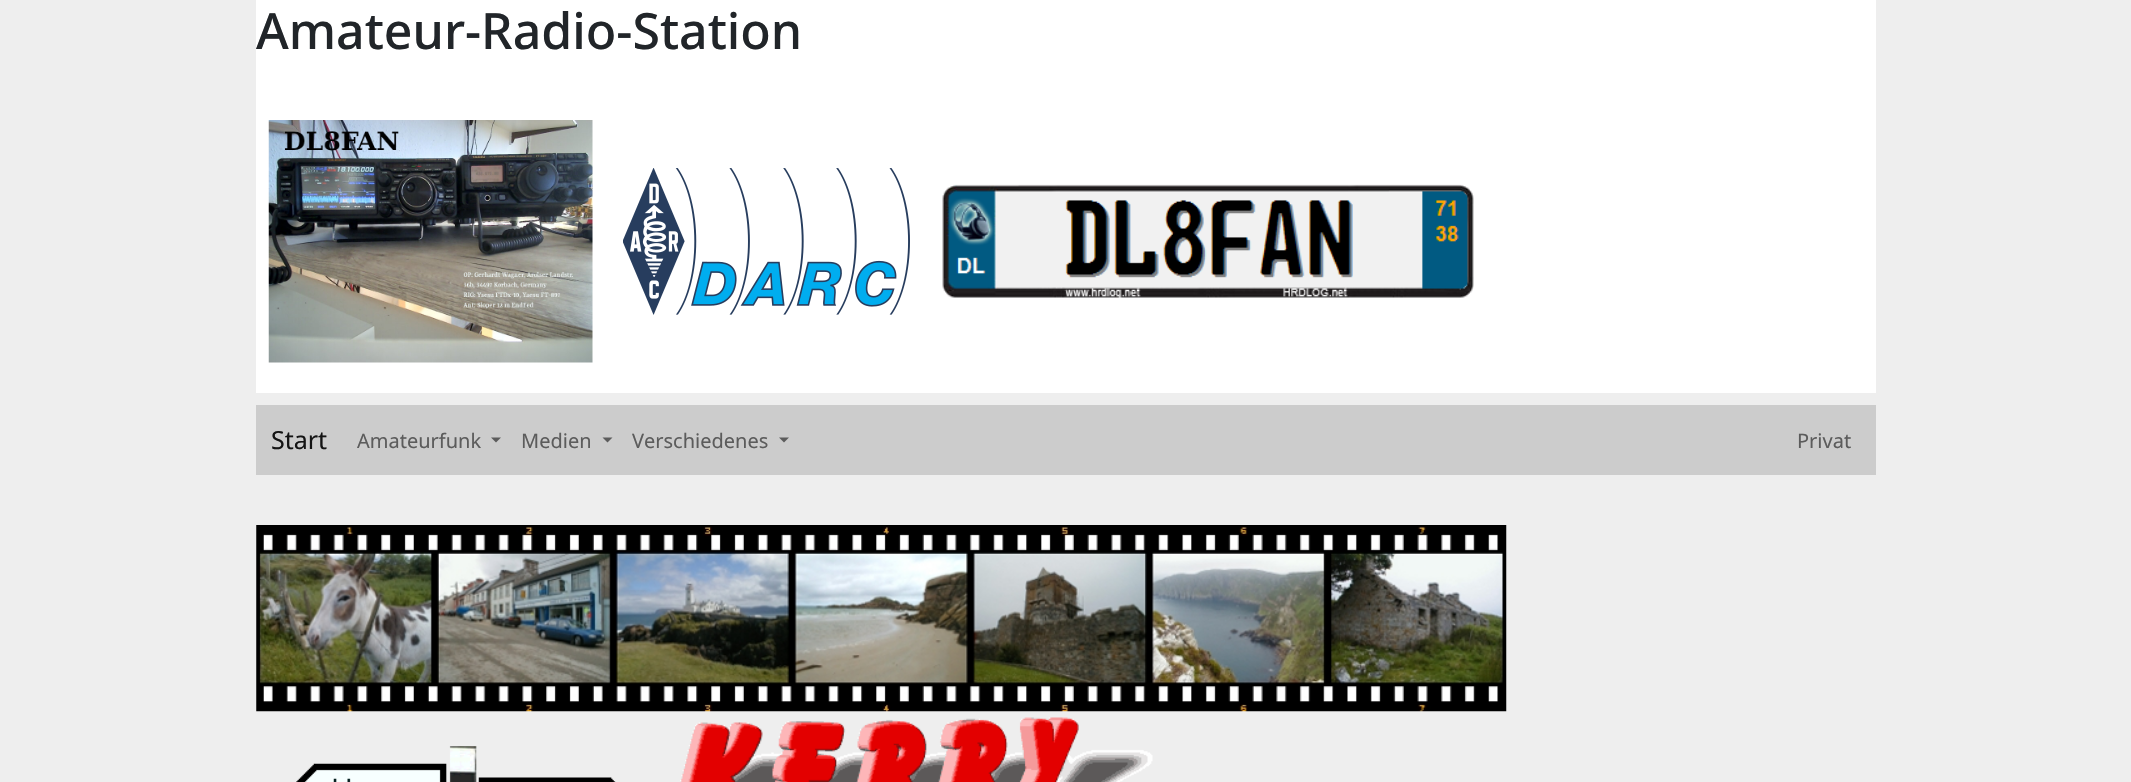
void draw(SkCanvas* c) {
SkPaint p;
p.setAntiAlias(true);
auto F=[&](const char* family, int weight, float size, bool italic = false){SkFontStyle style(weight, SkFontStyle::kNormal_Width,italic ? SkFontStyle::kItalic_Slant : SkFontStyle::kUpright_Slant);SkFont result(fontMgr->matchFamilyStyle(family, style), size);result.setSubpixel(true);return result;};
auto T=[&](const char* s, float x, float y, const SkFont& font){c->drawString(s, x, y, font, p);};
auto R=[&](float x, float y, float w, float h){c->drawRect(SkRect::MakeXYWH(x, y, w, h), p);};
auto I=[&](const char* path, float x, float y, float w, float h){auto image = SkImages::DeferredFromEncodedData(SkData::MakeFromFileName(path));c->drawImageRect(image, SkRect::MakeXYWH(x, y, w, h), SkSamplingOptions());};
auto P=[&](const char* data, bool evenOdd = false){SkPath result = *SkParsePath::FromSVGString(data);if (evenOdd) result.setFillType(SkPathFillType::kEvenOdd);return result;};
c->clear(0xffeeeeee);
p.setColor(0xffffffff);
R(256,0,1620,393);
auto f1 = F("Noto Sans",500,50);
p.setColor(0xff212529);
T("Amateur-Radio-Station",256,49,f1);
I("1.png",268,120,325,243);
I("2.png",623,168,287,147);
I("3.png",942,184,532,114);
p.setColor(0xffcccccc);
R(256,405,1620,70);
auto f2 = F("Noto Sans",400,25);
p.setColor(0xff141414);
T("Start",271,449,f2);
auto f3 = F("Noto Sans",400,20);
p.setColor(0xff5c5c5c);
T("Amateurfunk",357,448,f3);
c->drawPath(P("M491 437.5h10l-5 5z"),p);
T("Medien",521,448,f3);
c->drawPath(P("M602.5 437.5h10l-5 5z"),p);
T("Verschiedenes",632,448,f3);
c->drawPath(P("M779 437.5h10l-5 5z"),p);
T("Privat",1797,448,f3);
I("4.png",256,525,1251,187);
I("5.png",296,746,320,36);
I("6.png",680,717,473,65);
}
